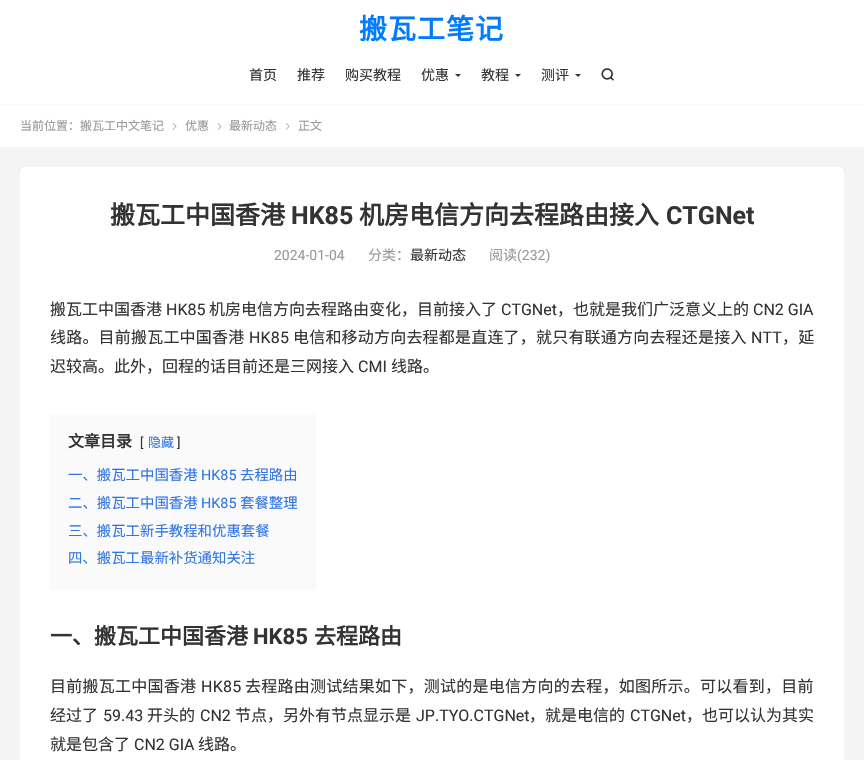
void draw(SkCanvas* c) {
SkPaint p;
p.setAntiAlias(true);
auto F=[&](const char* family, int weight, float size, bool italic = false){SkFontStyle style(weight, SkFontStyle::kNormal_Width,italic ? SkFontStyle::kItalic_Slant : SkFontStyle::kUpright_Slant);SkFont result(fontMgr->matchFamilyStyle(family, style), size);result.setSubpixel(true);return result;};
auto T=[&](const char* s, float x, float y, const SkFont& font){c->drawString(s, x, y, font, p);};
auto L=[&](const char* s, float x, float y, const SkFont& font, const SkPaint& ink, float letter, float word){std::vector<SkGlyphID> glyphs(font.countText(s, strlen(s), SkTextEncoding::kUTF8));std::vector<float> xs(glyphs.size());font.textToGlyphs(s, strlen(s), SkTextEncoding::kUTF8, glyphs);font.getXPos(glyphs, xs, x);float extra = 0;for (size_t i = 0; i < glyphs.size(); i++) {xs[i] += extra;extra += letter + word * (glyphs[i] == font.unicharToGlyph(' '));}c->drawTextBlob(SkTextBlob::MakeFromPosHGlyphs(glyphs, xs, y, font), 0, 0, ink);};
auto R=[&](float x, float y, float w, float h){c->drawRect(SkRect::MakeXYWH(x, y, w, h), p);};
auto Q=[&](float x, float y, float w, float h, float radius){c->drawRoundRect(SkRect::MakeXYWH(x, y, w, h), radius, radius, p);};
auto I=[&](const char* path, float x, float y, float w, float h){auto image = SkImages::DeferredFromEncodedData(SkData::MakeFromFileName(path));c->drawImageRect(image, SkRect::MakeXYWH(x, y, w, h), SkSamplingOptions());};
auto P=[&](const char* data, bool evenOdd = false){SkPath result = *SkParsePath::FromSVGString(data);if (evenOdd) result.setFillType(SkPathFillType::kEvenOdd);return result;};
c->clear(0xfff4f4f4);
p.setColor(0xffffffff);
R(0,0,864,104);
auto f1 = F("Noto Sans CJK SC",700,28);
p.setColor(0xff007bff);
L("搬瓦工笔记",359,39,f1,p,1,0);
auto f2 = F("Noto Sans CJK SC",400,14);
p.setColor(0xff333333);
T("首页",249,80,f2);
T("推荐",297,80,f2);
T("购买教程",345,80,f2);
T("优惠",421,80,f2);
c->drawPath(P("M455 74h6l-3 3z"),p);
T("教程",481,80,f2);
c->drawPath(P("M515 74h6l-3 3z"),p);
T("测评",541,80,f2);
c->drawPath(P("M575 74h6l-3 3z"),p);
I("1.png",601,68,13,13);
p.setColor(0xffffffff);
R(0,105,864,42);
p.setColor(0xfffafafa);
R(0,104,864,1);
auto f3 = F("Noto Sans CJK SC",400,12);
p.setColor(0xff999999);
T("当前位置：搬瓦工中文笔记",20,130,f3);
I("2.png",172,123,5,7);
T("优惠",185,130,f3);
I("2.png",217,123,5,7);
T("最新动态",229,130,f3);
I("2.png",285,123,5,7);
T("正文",298,130,f3);
p.setColor(0xffffffff);
Q(20,167,824,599,6);
auto f4 = F("Noto Sans CJK SC",700,25);
p.setColor(0xff333333);
T("搬瓦工中国香港",110,224,f4);
auto f5 = F("Roboto",700,25);
T("HK85",291,224,f5);
T("机房电信方向去程路由接入",359,224,f4);
T("CTGNet",666,224,f5);
auto f6 = F("Roboto",400,14);
p.setColor(0xff999999);
T("2024-01-04",274,260,f6);
T("分类：",368,260,f2);
p.setColor(0xff333333);
T("最新动态",410,260,f2);
p.setColor(0xff999999);
T("阅读",489,260,f2);
T("(232)",517,260,f6);
auto f7 = F("Noto Sans CJK SC",400,16);
p.setColor(0xff333333);
T("搬瓦工中国香港",50,315,f7);
auto f8 = F("Roboto",400,16);
T("HK85",166,315,f8);
T("机房电信方向去程路由变化，目前接入了",209,315,f7);
T("CTGNet",501,315,f8);
T("，也就是我们广泛意义上的",557,315,f7);
T("CN2 GIA",753,315,f8);
L("线路。目前搬瓦工中国香港",50,343,f7,p,.2,0);
L("HK85",249,343,f8,p,.2,0);
L("电信和移动方向去程都是直连了，就只有联通方向去程还是接入",293,343,f7,p,.2,0);
L("NTT",751,343,f8,p,.2,0);
L("，延",782,343,f7,p,.2,0);
T("迟较高。此外，回程的话目前还是三网接入",50,372,f7);
T("CMI",358,372,f8);
T("线路。",391,372,f7);
p.setColor(0xfffafafa);
R(50,414,266,176);
auto f9 = F("Noto Sans CJK SC",700,16);
p.setColor(0xff333333);
T("文章目录",68,447,f9);
auto f10 = F("Roboto",400,13);
T("[",140,447,f10);
auto f11 = F("Noto Sans CJK SC",400,13);
p.setColor(0xff3175e4);
T("隐藏",148,447,f11);
p.setColor(0xff333333);
T("]",177,447,f10);
auto f12 = F("Noto Sans CJK SC",400,14.4);
p.setColor(0xff3175e4);
T("一、搬瓦工中国香港",68,480,f12);
auto f13 = F("Roboto",400,14.4);
T("HK85",201,480,f13);
T("去程路由",240,480,f12);
T("二、搬瓦工中国香港",68,508,f12);
T("HK85",201,508,f13);
T("套餐整理",240,508,f12);
T("三、搬瓦工新手教程和优惠套餐",68,536,f12);
T("四、搬瓦工最新补货通知关注",68,563,f12);
auto f14 = F("Noto Sans CJK SC",700,22);
p.setColor(0xff333333);
T("一、搬瓦工中国香港",50,644,f14);
auto f15 = F("Roboto",700,22);
T("HK85",253,644,f15);
T("去程路由",314,644,f14);
L("目前搬瓦工中国香港",50,692,f7,p,.25,0);
L("HK85",201,692,f8,p,.25,0);
L("去程路由测试结果如下，测试的是电信方向的去程，如图所示。可以看到，目前",245,692,f7,p,.25,0);
T("经过了",50,721,f7);
T("59.43",103,721,f8);
T("开头的",147,721,f7);
T("CN2",200,721,f8);
T("节点，另外有节点显示是",235,721,f7);
T("JP.TYO.CTGNet",416,721,f8);
T("，就是电信的",529,721,f7);
T("CTGNet",630,721,f8);
T("，也可以认为其实",686,721,f7);
T("就是包含了",50,750,f7);
T("CN2 GIA",134,750,f8);
T("线路。",198,750,f7);
}
